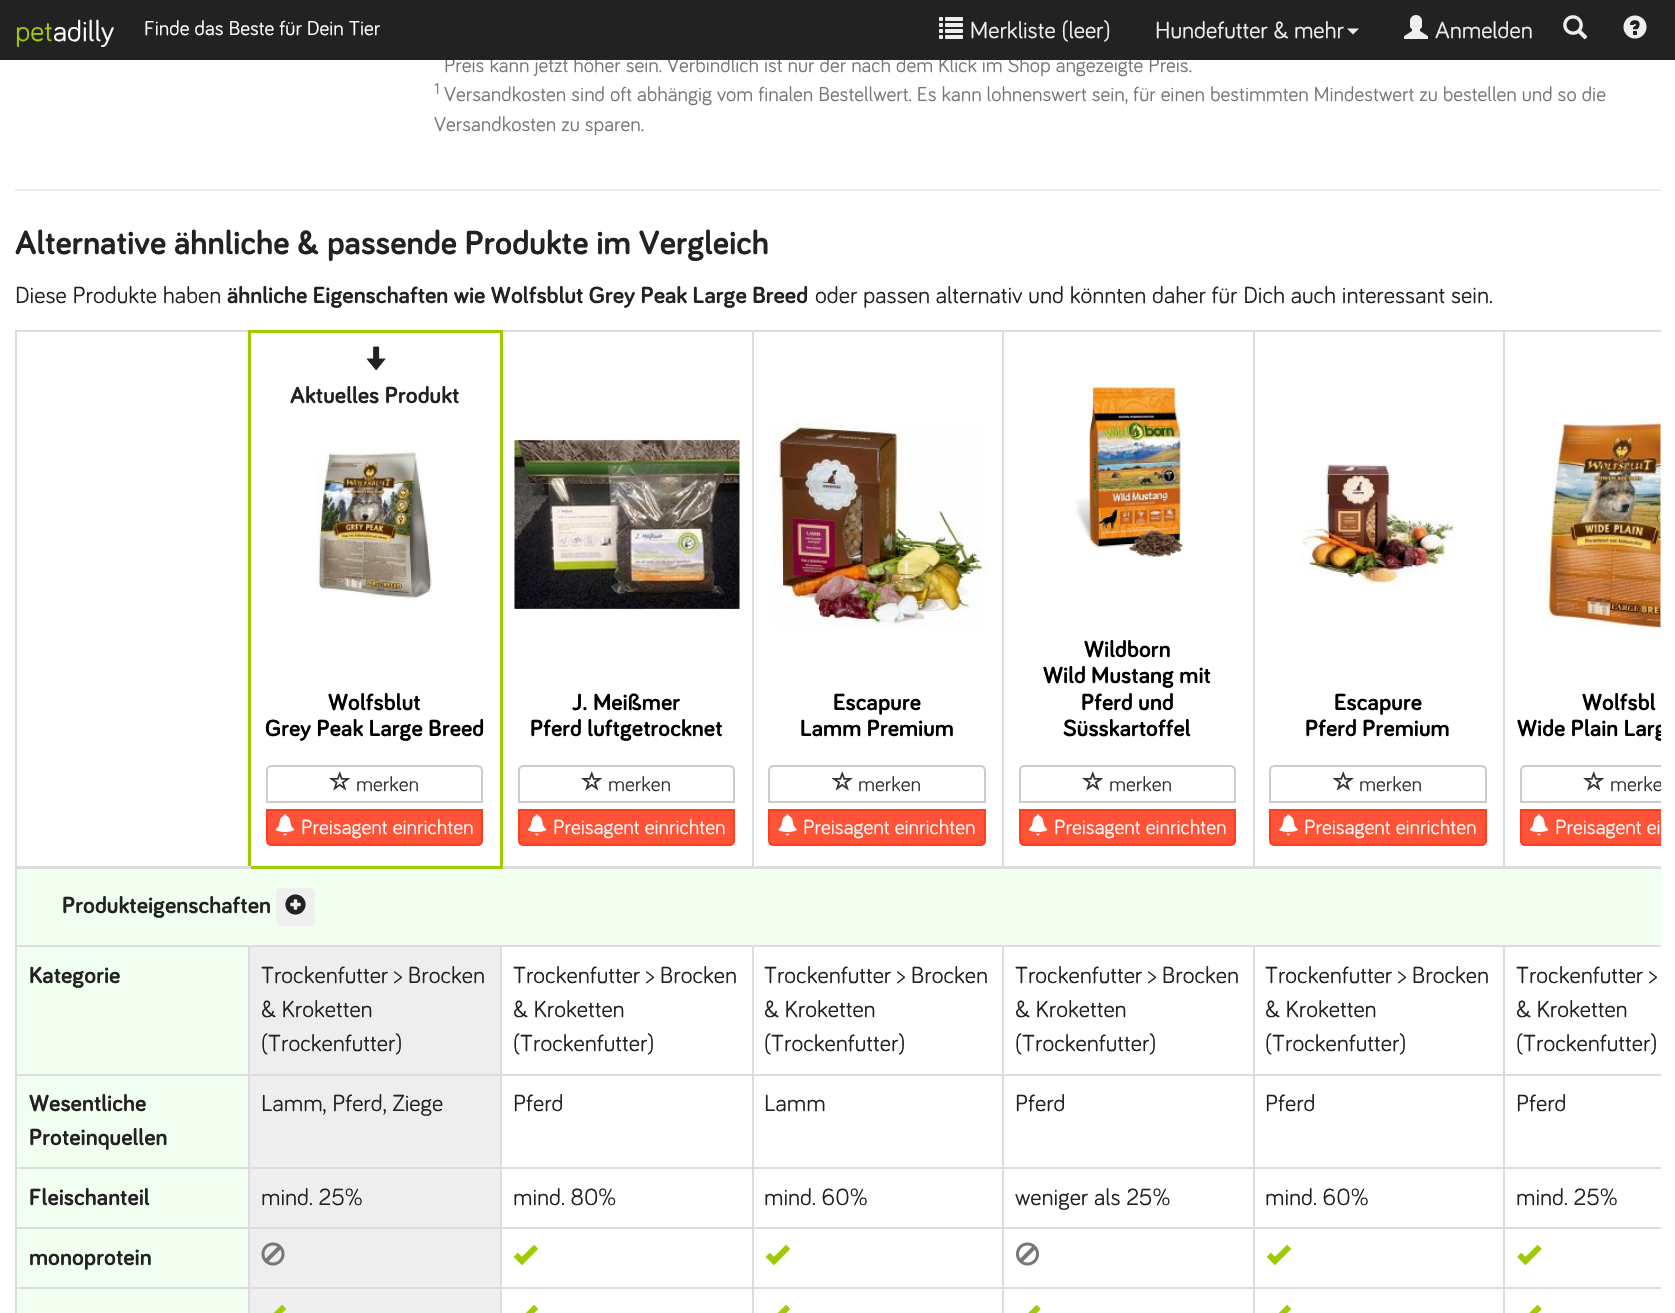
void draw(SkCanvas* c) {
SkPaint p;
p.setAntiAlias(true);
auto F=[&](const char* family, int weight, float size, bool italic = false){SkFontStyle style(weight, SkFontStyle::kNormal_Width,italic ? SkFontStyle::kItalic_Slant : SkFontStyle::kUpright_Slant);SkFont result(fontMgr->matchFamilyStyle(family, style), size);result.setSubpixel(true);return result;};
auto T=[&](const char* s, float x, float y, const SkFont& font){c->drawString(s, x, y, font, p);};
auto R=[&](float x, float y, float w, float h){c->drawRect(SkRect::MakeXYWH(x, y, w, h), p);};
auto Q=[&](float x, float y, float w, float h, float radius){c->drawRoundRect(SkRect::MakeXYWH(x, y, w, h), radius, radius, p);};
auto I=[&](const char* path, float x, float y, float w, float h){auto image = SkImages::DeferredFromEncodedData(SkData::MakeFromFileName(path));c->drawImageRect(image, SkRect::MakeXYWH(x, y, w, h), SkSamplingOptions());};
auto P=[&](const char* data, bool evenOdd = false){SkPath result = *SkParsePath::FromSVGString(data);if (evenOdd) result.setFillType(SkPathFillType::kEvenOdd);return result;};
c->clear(0xffffffff);
auto f1 = F("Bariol",400,20.88);
p.setColor(0xff777777);
T("Preis kann jetzt höher sein. Verbindlich ist nur der nach dem Klick im Shop angezeigte Preis.",444,72,f1);
p.setColor(0xff222222);
R(0,0,1675,60);
auto f2 = F("Bariol",400,30);
p.setColor(0xff9ecb03);
T("pet",15,41,f2);
p.setColor(0xffffffff);
T("adilly",53,41,f2);
T("Finde das Beste für Dein Tier",144,35,f1);
I("1.png",939,17,24,22);
auto f3 = F("Bariol",400,24);
p.setColor(0xffeeeeee);
T("Merkliste (leer)",970,38,f3);
T("Hundefutter & mehr",1155,38,f3);
c->drawPath(P("M1347 28.5h12l-6 6z"),p);
I("2.png",1404,15,24,24);
T("Anmelden",1435,38,f3);
I("3.png",1563,15,25,25);
I("4.png",1623,15,24,24);
auto f4 = F("Bariol",400,16);
p.setColor(0xff777777);
T("1",434,94,f4);
T("Versandkosten sind oft abhängig vom finalen Bestellwert. Es kann lohnenswert sein, für einen bestimmten Mindestwert zu bestellen und so die",444,101,f1);
T("Versandkosten zu sparen.",434,131,f1);
p.setColor(0xffeeeeee);
R(15,189,1646,2);
auto f5 = F("Bariol",700,34.5);
p.setColor(0xff222222);
T("Alternative ähnliche & passende Produkte im Vergleich",15,254,f5);
T("Diese Produkte haben",15,303,f3);
auto f6 = F("Bariol",700,24);
T("ähnliche Eigenschaften wie Wolfsblut Grey Peak Large Breed",227,303,f6);
T("oder passen alternativ und könnten daher für Dich auch interessant sein.",815,303,f3);
p.setColor(0xffdddddd);
R(15,330,1646,2);
R(15,330,2,983);
p.setColor(0xff9ecb03);
R(248,330,255,3);
p.setColor(0xffdddddd);
R(752,330,2,539);
R(1002,330,2,539);
R(1253,330,2,539);
R(1503,330,2,539);
R(500,866,1161,3);
p.setColor(0xff9ecb03);
R(500,330,3,539);
R(248,866,255,3);
R(248,330,3,539);
I("5.png",366,346,20,24);
p.setColor(0xff222222);
T("Aktuelles Produkt",290,403,f6);
I("6.png",316,449,117,152);
p.setColor(0xff000000);
T("Wolfsblut",328,710,f6);
T("Grey Peak Large Breed",265,736,f6);
p.setStroke(true);
p.setStrokeWidth(2);
p.setColor(0xffcccccc);
c->drawPath(P("M271 766h206c3 0 5 2 5 5v31h-215v-32c0-2 2-4 4-4z"),p);
I("7.png",329,771,21,20);
auto f7 = F("Bariol",400,21);
p.setStroke(false);
p.setColor(0xff333333);
T("merken",356,791,f7);
p.setColor(0xffff5338);
c->drawPath(P("M267 810h215v31c0 2-2 4-4 4h-206c-3 0-5-2-5-5z"),p);
p.setStroke(true);
p.setColor(0xffff3d1f);
c->drawPath(P("M267 810h215v31c0 2-2 4-4 4h-206c-3 0-5-2-5-5z"),p);
I("8.png",275,814,20,22);
p.setStroke(false);
p.setColor(0xffffffff);
T("Preisagent einrichten",301,834,f7);
I("9.png",514,430,226,180);
p.setColor(0xff000000);
T("J. Meißmer",572,710,f6);
T("Pferd luftgetrocknet",530,736,f6);
p.setStroke(true);
p.setColor(0xffcccccc);
c->drawPath(P("M523 766h206c3 0 5 2 5 5v31h-215v-32c0-2 2-4 4-4z"),p);
I("7.png",581,771,21,20);
p.setStroke(false);
p.setColor(0xff333333);
T("merken",608,791,f7);
p.setColor(0xffff5338);
c->drawPath(P("M519 810h215v31c0 2-2 4-4 4h-206c-3 0-5-2-5-5z"),p);
p.setStroke(true);
p.setColor(0xffff3d1f);
c->drawPath(P("M519 810h215v31c0 2-2 4-4 4h-206c-3 0-5-2-5-5z"),p);
I("8.png",527,814,20,22);
p.setStroke(false);
p.setColor(0xffffffff);
T("Preisagent einrichten",553,834,f7);
I("10.png",765,421,225,207);
p.setColor(0xff000000);
T("Escapure",833,710,f6);
T("Lamm Premium",800,736,f6);
p.setStroke(true);
p.setColor(0xffcccccc);
c->drawPath(P("M773 766h207c3 0 5 2 5 5v31h-216v-32c0-2 2-4 4-4z"),p);
I("11.png",831,771,22,20);
p.setStroke(false);
p.setColor(0xff333333);
T("merken",858,791,f7);
p.setColor(0xffff5338);
c->drawPath(P("M769 810h216v31c0 2-2 4-4 4h-207c-3 0-5-2-5-5z"),p);
p.setStroke(true);
p.setColor(0xffff3d1f);
c->drawPath(P("M769 810h216v31c0 2-2 4-4 4h-207c-3 0-5-2-5-5z"),p);
I("12.png",778,814,19,22);
p.setStroke(false);
p.setColor(0xffffffff);
T("Preisagent einrichten",803,834,f7);
I("13.png",1075,383,109,175);
p.setColor(0xff000000);
T("Wildborn",1084,657,f6);
T("Wild Mustang mit",1043,683,f6);
T("Pferd und",1081,710,f6);
T("Süsskartoffel",1063,736,f6);
p.setStroke(true);
p.setColor(0xffcccccc);
c->drawPath(P("M1024 766h206c3 0 5 2 5 5v31h-215v-32c0-2 2-4 4-4z"),p);
I("7.png",1082,771,21,20);
p.setStroke(false);
p.setColor(0xff333333);
T("merken",1109,791,f7);
p.setColor(0xffff5338);
c->drawPath(P("M1020 810h215v31c0 2-2 4-4 4h-206c-3 0-5-2-5-5z"),p);
p.setStroke(true);
p.setColor(0xffff3d1f);
c->drawPath(P("M1020 810h215v31c0 2-2 4-4 4h-206c-3 0-5-2-5-5z"),p);
I("8.png",1028,814,20,22);
p.setStroke(false);
p.setColor(0xffffffff);
T("Preisagent einrichten",1054,834,f7);
I("14.png",1302,463,154,129);
p.setColor(0xff000000);
T("Escapure",1334,710,f6);
T("Pferd Premium",1305,736,f6);
p.setStroke(true);
p.setColor(0xffcccccc);
c->drawPath(P("M1274 766h207c3 0 5 2 5 5v31h-216v-32c0-2 2-4 4-4z"),p);
I("11.png",1332,771,22,20);
p.setStroke(false);
p.setColor(0xff333333);
T("merken",1359,791,f7);
p.setColor(0xffff5338);
c->drawPath(P("M1270 810h216v31c0 2-2 4-4 4h-207c-3 0-5-2-5-5z"),p);
p.setStroke(true);
p.setColor(0xffff3d1f);
c->drawPath(P("M1270 810h216v31c0 2-2 4-4 4h-207c-3 0-5-2-5-5z"),p);
I("12.png",1279,814,19,22);
p.setStroke(false);
p.setColor(0xffffffff);
T("Preisagent einrichten",1304,834,f7);
I("15.png",1537,412,124,217);
p.setColor(0xff000000);
T("Wolfsbl",1582,710,f6);
c->save();
c->clipRect(SkRect::MakeXYWH(15,330,1646,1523));
T("Wide Plain Larg",1517,736,f6);
p.setStroke(true);
p.setColor(0xffcccccc);
c->drawPath(P("M1525 766h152c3 0 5 2 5 5v31h-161v-32c0-2 2-4 4-4z"),p);
c->restore();
I("7.png",1583,771,21,20);
c->save();
c->clipRect(SkRect::MakeXYWH(15,330,1646,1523));
p.setStroke(false);
p.setColor(0xff333333);
T("merke",1610,791,f7);
c->restore();
p.setColor(0xffff5338);
c->drawPath(P("M1520 809h141v37h-135c-3.5 0-6-2.5-6-6z"),p);
c->save();
c->clipRect(SkRect::MakeXYWH(15,330,1646,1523));
p.setStroke(true);
p.setColor(0xffff3d1f);
c->drawPath(P("M1521 810h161v31c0 2-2 4-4 4h-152c-3 0-5-2-5-5z"),p);
c->restore();
I("8.png",1529,814,20,22);
p.setStroke(false);
p.setColor(0xffffffff);
T("Preisagent ei",1555,834,f7);
p.setColor(0xffdddddd);
R(15,866,236,3);
p.setColor(0xfff0fff0);
R(17,869,1644,76);
p.setColor(0xff222222);
T("Produkteigenschaften",62,913,f6);
p.setColor(0xffefefef);
Q(276,888,39,38,5);
I("16.png",285,894,21,21);
p.setColor(0xfff0fff0);
R(17,947,231,127);
p.setColor(0xffdddddd);
R(1503,945,158,2);
R(1503,1074,158,2);
R(1503,1167,158,2);
R(1503,1227,158,2);
R(1503,1287,158,2);
R(1503,1287,2,26);
R(1253,1287,252,2);
R(1503,1227,2,62);
R(1253,1227,252,2);
R(1503,1167,2,62);
R(1253,1167,252,2);
R(1503,1074,2,95);
R(1253,1074,252,2);
R(1503,945,2,131);
R(1253,945,252,2);
R(1253,1287,2,26);
R(1002,1287,252,2);
R(1253,1227,2,62);
R(1002,1227,252,2);
R(1253,1167,2,62);
R(1002,1167,252,2);
R(1253,1074,2,95);
R(1002,1074,252,2);
R(1253,945,2,131);
R(1002,945,252,2);
R(1002,1287,2,26);
R(752,1287,252,2);
R(1002,1227,2,62);
R(752,1227,252,2);
R(1002,1167,2,62);
R(752,1167,252,2);
R(1002,1074,2,95);
R(752,1074,252,2);
R(1002,945,2,131);
R(752,945,252,2);
R(752,1287,2,26);
R(500,1287,253,2);
R(752,1227,2,62);
R(500,1227,253,2);
R(752,1167,2,62);
R(500,1167,253,2);
R(752,1074,2,95);
R(500,1074,253,2);
R(752,945,2,131);
R(500,945,253,2);
R(500,1287,2,26);
R(248,1287,253,2);
R(500,1227,2,62);
R(248,1227,253,2);
R(500,1167,2,62);
R(248,1167,253,2);
R(500,1074,2,95);
R(248,1074,253,2);
R(500,945,2,131);
R(248,945,253,2);
R(248,1287,2,26);
R(15,1287,234,2);
R(248,1227,2,62);
R(15,1227,234,2);
R(248,1167,2,62);
R(15,1167,234,2);
R(248,1074,2,95);
R(15,1074,234,2);
R(248,945,2,131);
R(15,945,234,2);
p.setColor(0xff222222);
T("Kategorie",29,983,f6);
p.setColor(0xffeeeeee);
R(250,947,250,127);
p.setColor(0xff222222);
T("Trockenfutter > Brocken",261,983,f3);
T("& Kroketten",261,1017,f3);
T("(Trockenfutter)",261,1051,f3);
T("Trockenfutter > Brocken",513,983,f3);
T("& Kroketten",513,1017,f3);
T("(Trockenfutter)",513,1051,f3);
T("Trockenfutter > Brocken",764,983,f3);
T("& Kroketten",764,1017,f3);
T("(Trockenfutter)",764,1051,f3);
T("Trockenfutter > Brocken",1015,983,f3);
T("& Kroketten",1015,1017,f3);
T("(Trockenfutter)",1015,1051,f3);
T("Trockenfutter > Brocken",1265,983,f3);
T("& Kroketten",1265,1017,f3);
T("(Trockenfutter)",1265,1051,f3);
T("Trockenfutter >",1516,983,f3);
T("& Kroketten",1516,1017,f3);
T("(Trockenfutter)",1516,1051,f3);
p.setColor(0xfff0fff0);
R(17,1076,231,91);
p.setColor(0xff222222);
T("Wesentliche",29,1111,f6);
T("Proteinquellen",29,1145,f6);
p.setColor(0xffeeeeee);
R(250,1076,250,91);
p.setColor(0xff222222);
T("Lamm, Pferd, Ziege",261,1111,f3);
T("Pferd",513,1111,f3);
T("Lamm",764,1111,f3);
T("Pferd",1015,1111,f3);
T("Pferd",1265,1111,f3);
T("Pferd",1516,1111,f3);
p.setColor(0xfff0fff0);
R(17,1169,231,58);
p.setColor(0xff222222);
T("Fleischanteil",29,1205,f6);
p.setColor(0xffeeeeee);
R(250,1169,250,58);
p.setColor(0xff222222);
T("mind. 25%",261,1205,f3);
T("mind. 80%",513,1205,f3);
T("mind. 60%",764,1205,f3);
T("weniger als 25%",1015,1205,f3);
T("mind. 60%",1265,1205,f3);
T("mind. 25%",1516,1205,f3);
p.setColor(0xfff0fff0);
R(17,1229,231,58);
p.setColor(0xff222222);
T("monoprotein",29,1265,f6);
p.setColor(0xffeeeeee);
R(250,1229,250,58);
I("17.png",261,1242,24,24);
I("18.png",513,1244,26,22);
I("18.png",765,1244,26,22);
I("19.png",1016,1242,23,24);
I("18.png",1266,1244,26,22);
I("20.png",1517,1244,25,22);
p.setColor(0xfff0fff0);
R(17,1289,231,24);
p.setColor(0xffeeeeee);
R(250,1289,250,24);
I("21.png",265,1304,22,9);
I("22.png",517,1304,22,9);
I("22.png",769,1304,22,9);
I("23.png",1020,1304,21,9);
I("22.png",1270,1304,22,9);
I("23.png",1521,1304,21,9);
}
